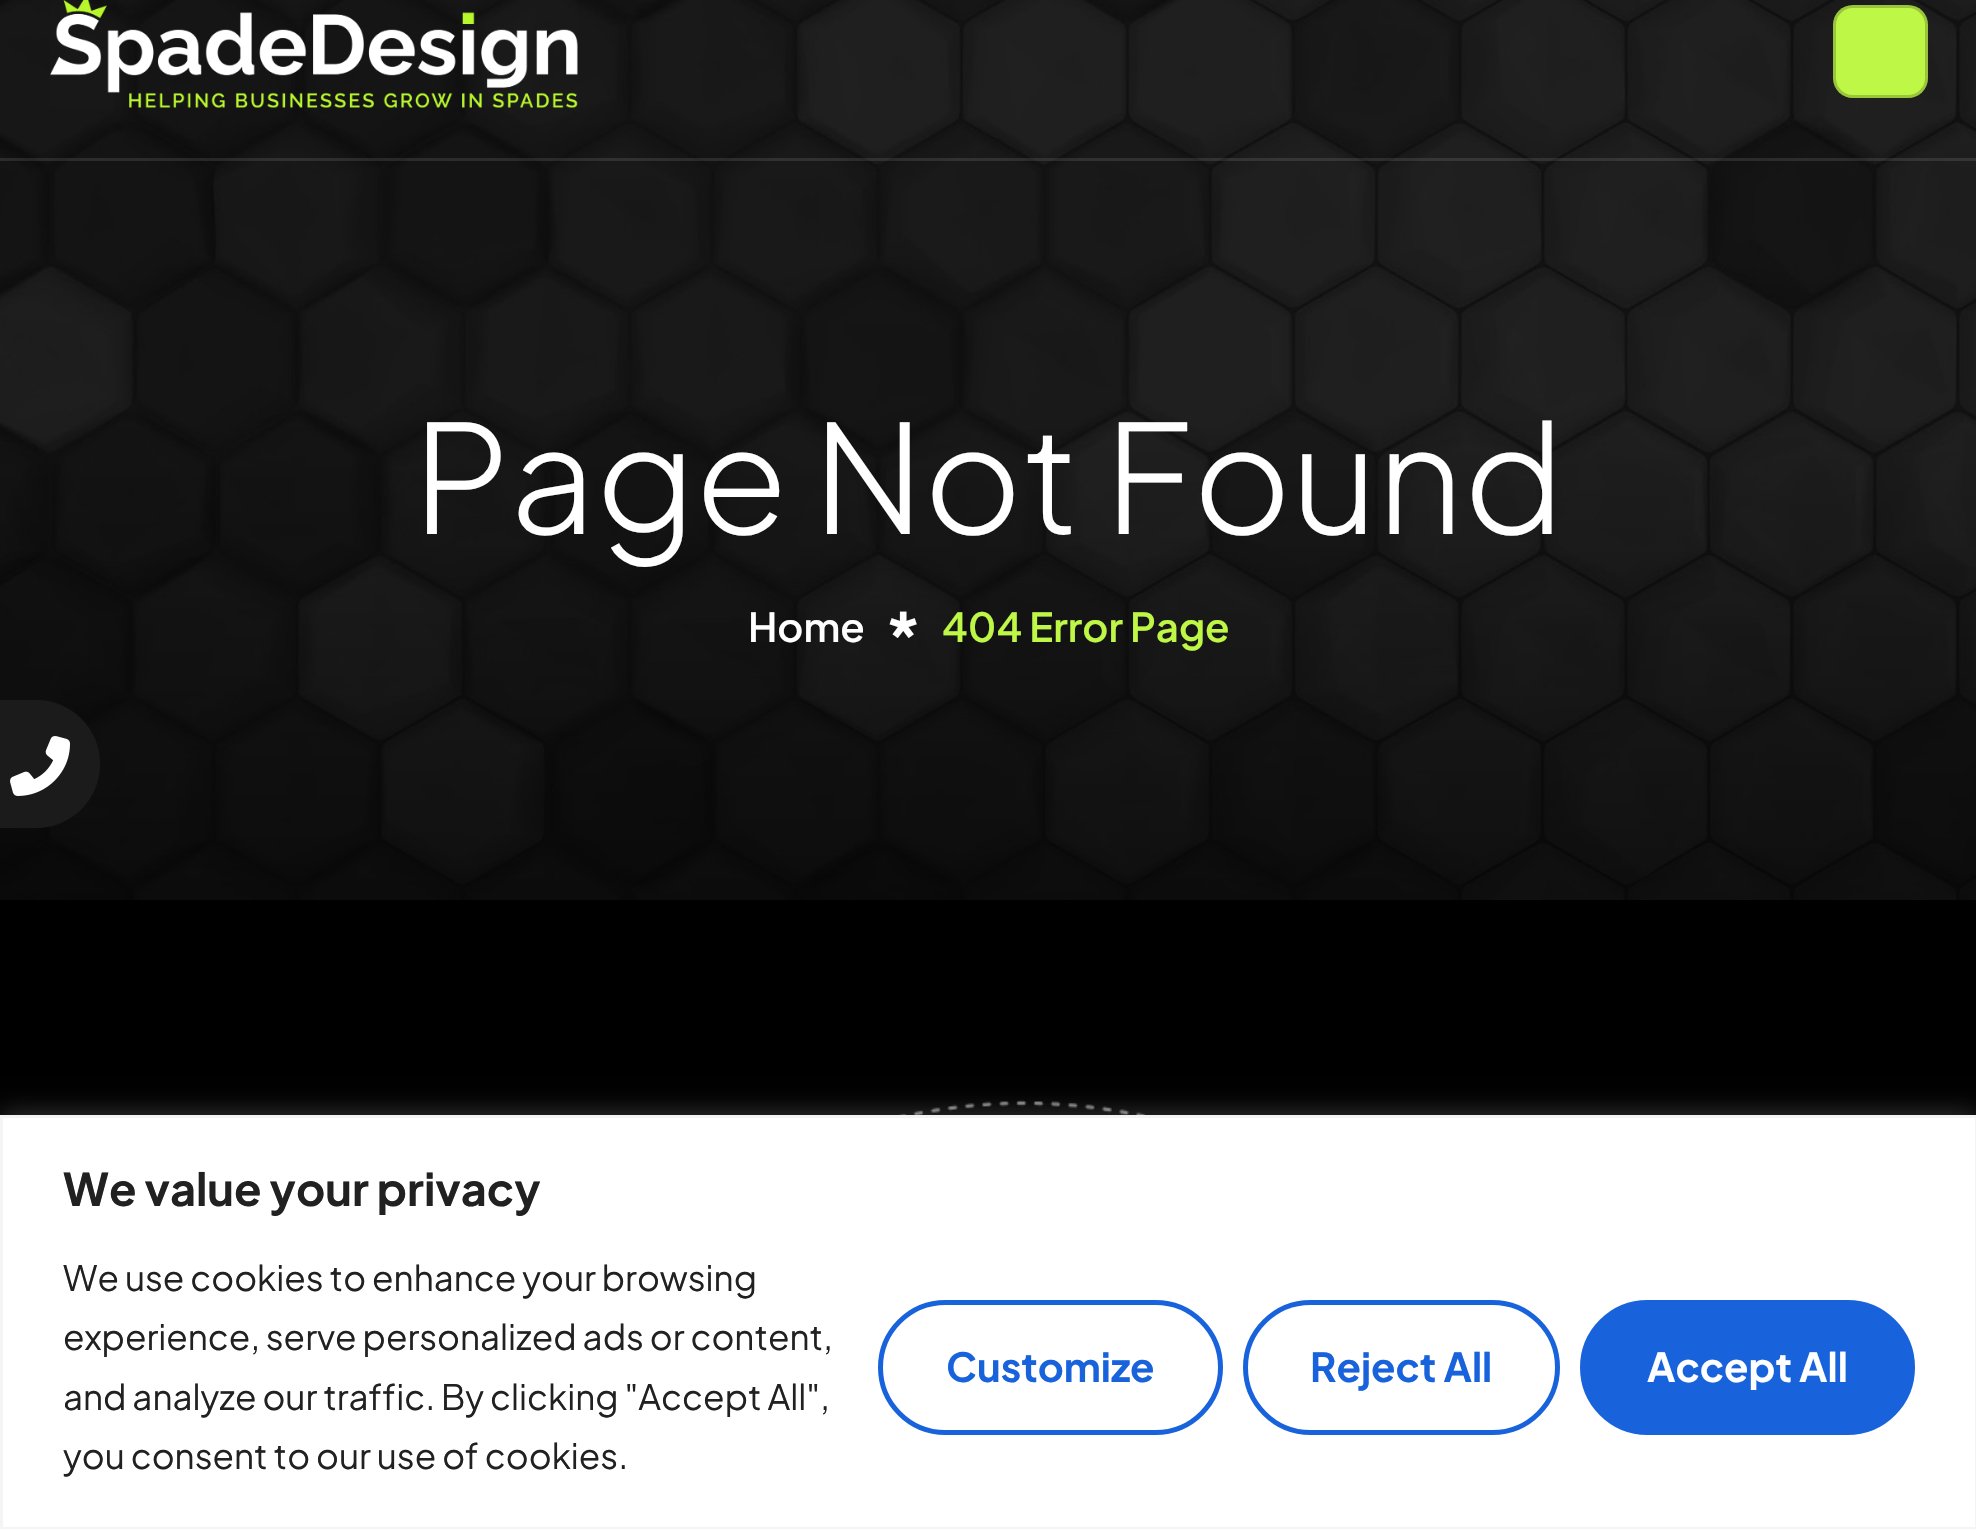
void draw(SkCanvas* c) {
SkPaint p;
p.setAntiAlias(true);
auto F=[&](const char* family, int weight, float size, bool italic = false){SkFontStyle style(weight, SkFontStyle::kNormal_Width,italic ? SkFontStyle::kItalic_Slant : SkFontStyle::kUpright_Slant);SkFont result(fontMgr->matchFamilyStyle(family, style), size);result.setSubpixel(true);return result;};
auto T=[&](const char* s, float x, float y, const SkFont& font){c->drawString(s, x, y, font, p);};
auto R=[&](float x, float y, float w, float h){c->drawRect(SkRect::MakeXYWH(x, y, w, h), p);};
auto Q=[&](float x, float y, float w, float h, float radius){c->drawRoundRect(SkRect::MakeXYWH(x, y, w, h), radius, radius, p);};
auto I=[&](const char* path, float x, float y, float w, float h){auto image = SkImages::DeferredFromEncodedData(SkData::MakeFromFileName(path));c->drawImageRect(image, SkRect::MakeXYWH(x, y, w, h), SkSamplingOptions());};
auto P=[&](const char* data, bool evenOdd = false){SkPath result = *SkParsePath::FromSVGString(data);if (evenOdd) result.setFillType(SkPathFillType::kEvenOdd);return result;};
c->clear(0xff000000);
I("2.png",0,0,1976,900);
p.setColor(0x1affffff);
R(0,158,1976,3);
I("1.png",50,0,528,108);
p.setColor(0xffbff747);
Q(1833,5,95,93,20);
p.setStroke(true);
p.setStrokeWidth(3);
p.setColor(0x33000000);
c->drawRoundRect(SkRect::MakeXYWH(1834.5,6.5,92,90),18.5,18.5,p);
auto f1 = F("Plus Jakarta Sans",300,150);
p.setStroke(false);
p.setColor(0xffffffff);
T("Page Not Found",413,534,f1);
auto f2 = F("Plus Jakarta Sans",600,40);
T("Home",748,642,f2);
auto f3 = F("Plus Jakarta Sans",600,70);
T("*",885,664,f3);
p.setColor(0xffbff747);
T("404 Error Page",942,642,f2);
I("3.png",899,1100,247,15);
p.setColor(0xff1b1b1b);
c->drawPath(P("M-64 700h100c35.5 0 64 28.5 64 64c0 35.5-28.5 64-64 64h-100z"),p);
I("4.png",10,736,60,60);
p.setColor(0x4dacabab);
p.setMaskFilter(SkMaskFilter::MakeBlur(kNormal_SkBlurStyle, 12.5));
c->drawRect(SkRect::MakeXYWH(0,1113,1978,415),p);
p.setMaskFilter(nullptr);
p.setColor(0xffffffff);
c->drawRect(SkRect::MakeXYWH(1.5,1116.5,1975,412),p);
p.setStroke(true);
p.setColor(0xfff4f4f4);
c->drawRect(SkRect::MakeXYWH(1.5,1116.5,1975,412),p);
auto f4 = F("Plus Jakarta Sans",700,45);
p.setStroke(false);
p.setColor(0xff212121);
T("We value your privacy",63,1206,f4);
auto f5 = F("Plus Jakarta Sans",400,35);
T("We use cookies to enhance your browsing",63,1291,f5);
T("experience, serve personalized ads or content,",63,1350,f5);
T("and analyze our traffic. By clicking \"Accept All\",",63,1410,f5);
T("you consent to our use of cookies.",63,1469,f5);
p.setStroke(true);
p.setStrokeWidth(5);
p.setColor(0xff1863dc);
c->drawRoundRect(SkRect::MakeXYWH(880.5,1302.5,340,130),65,65,p);
auto f6 = F("Plus Jakarta Sans",700,40);
p.setStroke(false);
T("Customize",946,1382,f6);
p.setStroke(true);
c->drawRoundRect(SkRect::MakeXYWH(1245.5,1302.5,312,130),65,65,p);
p.setStroke(false);
T("Reject All",1310,1382,f6);
c->drawRoundRect(SkRect::MakeXYWH(1582.5,1302.5,330,130),65,65,p);
p.setStroke(true);
c->drawRoundRect(SkRect::MakeXYWH(1582.5,1302.5,330,130),65,65,p);
p.setStroke(false);
p.setColor(0xffffffff);
T("Accept All",1647,1382,f6);
}
